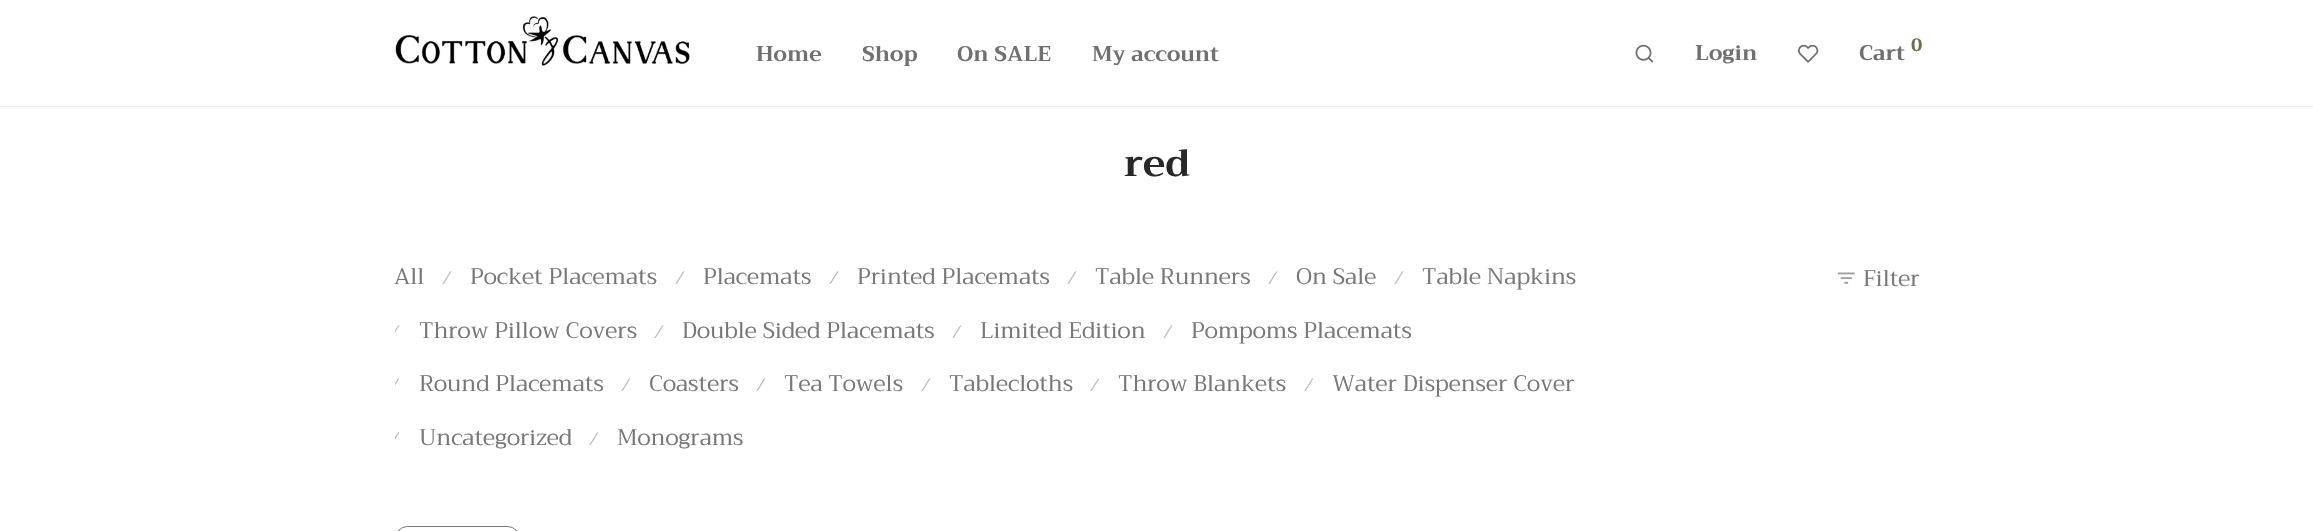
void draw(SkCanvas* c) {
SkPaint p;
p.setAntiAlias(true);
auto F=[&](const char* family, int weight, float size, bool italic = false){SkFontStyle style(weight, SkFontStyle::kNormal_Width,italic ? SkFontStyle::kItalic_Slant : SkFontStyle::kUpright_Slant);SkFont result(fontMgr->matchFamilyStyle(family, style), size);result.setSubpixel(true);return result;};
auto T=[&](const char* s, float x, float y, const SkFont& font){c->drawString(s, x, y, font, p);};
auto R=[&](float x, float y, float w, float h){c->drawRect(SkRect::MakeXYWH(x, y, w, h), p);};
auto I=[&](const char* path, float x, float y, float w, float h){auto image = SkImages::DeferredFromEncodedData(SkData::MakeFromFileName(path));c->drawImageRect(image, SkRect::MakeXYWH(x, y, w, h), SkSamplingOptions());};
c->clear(0xffffffff);
p.setColor(0xffeeeeee);
R(0,106,2313,1);
I("1.png",395,16,295,50);
auto f1 = F("Trirong",700,21.25);
p.setColor(0xff707070);
T("Home",756,61,f1);
T("Shop",862,61,f1);
T("On SALE",957,61,f1);
T("My account",1092,61,f1);
I("2.png",1635,44,19,19);
T("Login",1695,60,f1);
I("3.png",1797,44,22,19);
T("Cart",1859,60,f1);
auto f2 = F("Trirong",700,18);
p.setColor(0xff6f6b56);
T("0",1911,51,f2);
auto f3 = F("Trirong",700,38);
p.setColor(0xff282828);
T("red",1124,176,f3);
auto f4 = F("Trirong",400,22.5);
p.setColor(0xff777777);
T("All",394,284,f4);
auto f5 = F("Liberation Sans",400,18);
p.setColor(0xffbbbbbb);
T("⁄",446,284,f5);
p.setColor(0xff777777);
T("Pocket Placemats",470,284,f4);
p.setColor(0xffbbbbbb);
T("⁄",679,284,f5);
p.setColor(0xff777777);
T("Placemats",703,284,f4);
p.setColor(0xffbbbbbb);
T("⁄",833,284,f5);
p.setColor(0xff777777);
T("Printed Placemats",857,284,f4);
p.setColor(0xffbbbbbb);
T("⁄",1071,284,f5);
p.setColor(0xff777777);
T("Table Runners",1095,284,f4);
p.setColor(0xffbbbbbb);
T("⁄",1272,284,f5);
p.setColor(0xff777777);
T("On Sale",1296,284,f4);
p.setColor(0xffbbbbbb);
T("⁄",1398,284,f5);
p.setColor(0xff777777);
T("Table Napkins",1422,284,f4);
c->save();
c->clipRect(SkRect::MakeXYWH(395,260,1220,196));
p.setColor(0xffbbbbbb);
T("⁄",394,338,f5);
c->restore();
p.setColor(0xff777777);
T("Throw Pillow Covers",419,338,f4);
p.setColor(0xffbbbbbb);
T("⁄",658,338,f5);
p.setColor(0xff777777);
T("Double Sided Placemats",682,338,f4);
p.setColor(0xffbbbbbb);
T("⁄",956,338,f5);
p.setColor(0xff777777);
T("Limited Edition",980,338,f4);
p.setColor(0xffbbbbbb);
T("⁄",1167,338,f5);
p.setColor(0xff777777);
T("Pompoms Placemats",1191,338,f4);
c->save();
c->clipRect(SkRect::MakeXYWH(395,260,1220,196));
p.setColor(0xffbbbbbb);
T("⁄",394,391,f5);
c->restore();
p.setColor(0xff777777);
T("Round Placemats",419,391,f4);
p.setColor(0xffbbbbbb);
T("⁄",625,391,f5);
p.setColor(0xff777777);
T("Coasters",649,391,f4);
p.setColor(0xffbbbbbb);
T("⁄",760,391,f5);
p.setColor(0xff777777);
T("Tea Towels",784,391,f4);
p.setColor(0xffbbbbbb);
T("⁄",925,391,f5);
p.setColor(0xff777777);
T("Tablecloths",949,391,f4);
p.setColor(0xffbbbbbb);
T("⁄",1094,391,f5);
p.setColor(0xff777777);
T("Throw Blankets",1118,391,f4);
p.setColor(0xffbbbbbb);
T("⁄",1308,391,f5);
p.setColor(0xff777777);
T("Water Dispenser Cover",1332,391,f4);
c->save();
c->clipRect(SkRect::MakeXYWH(395,260,1220,196));
p.setColor(0xffbbbbbb);
T("⁄",394,445,f5);
c->restore();
p.setColor(0xff777777);
T("Uncategorized",419,445,f4);
p.setColor(0xffbbbbbb);
T("⁄",593,445,f5);
p.setColor(0xff777777);
T("Monograms",617,445,f4);
I("4.png",1837,272,18,12);
T("Filter",1863,286,f4);
p.setStroke(true);
p.setStrokeWidth(1);
c->drawRoundRect(SkRect::MakeXYWH(395.5,526.5,124,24),18.5,18.5,p);
}
